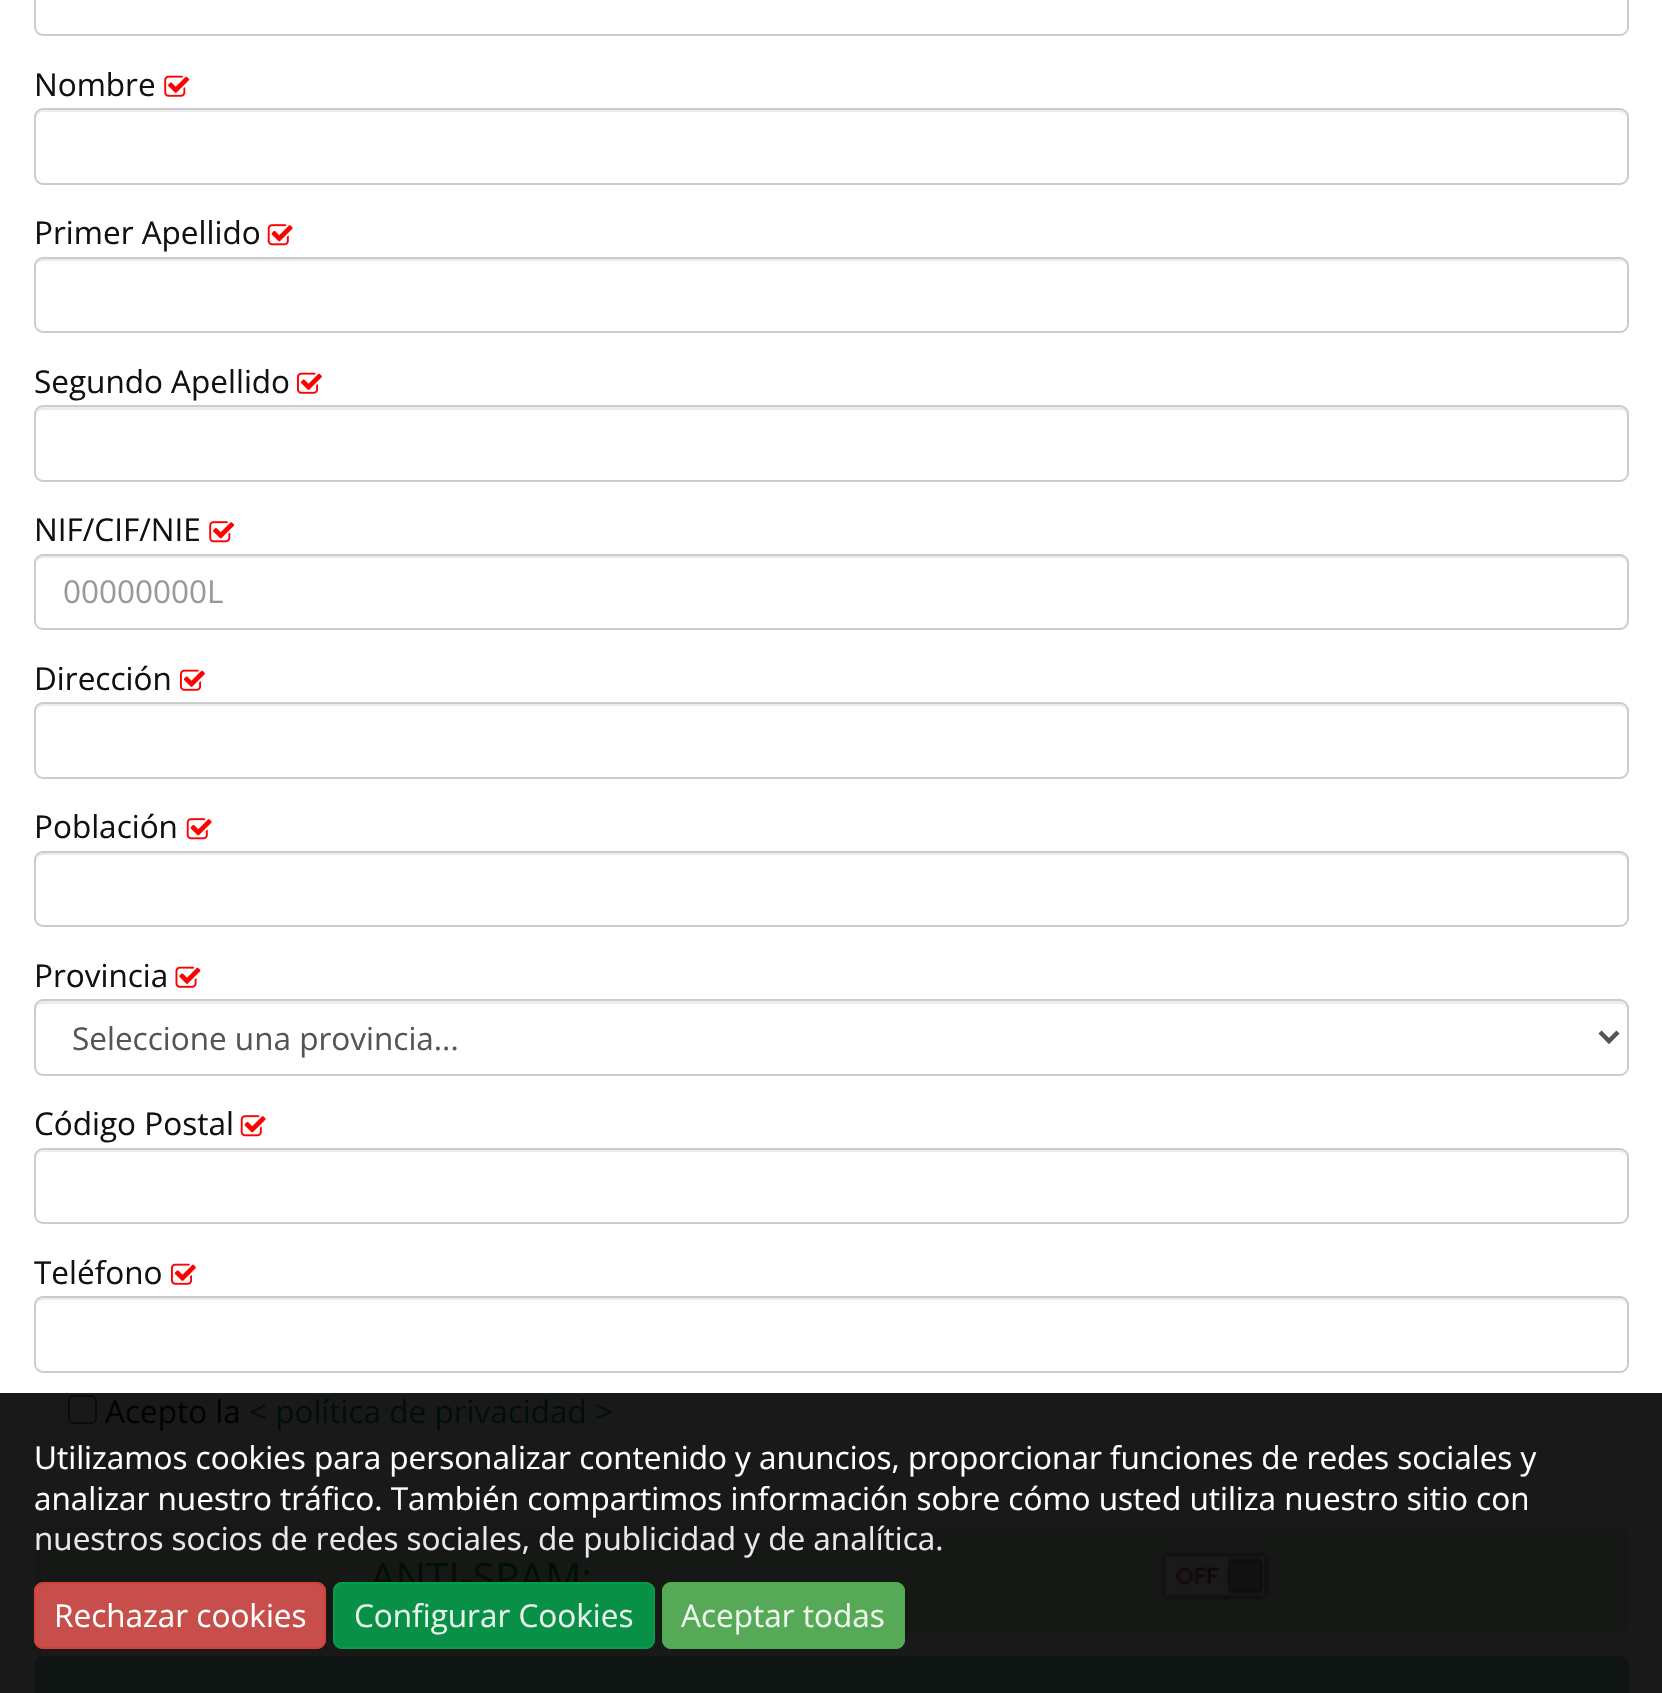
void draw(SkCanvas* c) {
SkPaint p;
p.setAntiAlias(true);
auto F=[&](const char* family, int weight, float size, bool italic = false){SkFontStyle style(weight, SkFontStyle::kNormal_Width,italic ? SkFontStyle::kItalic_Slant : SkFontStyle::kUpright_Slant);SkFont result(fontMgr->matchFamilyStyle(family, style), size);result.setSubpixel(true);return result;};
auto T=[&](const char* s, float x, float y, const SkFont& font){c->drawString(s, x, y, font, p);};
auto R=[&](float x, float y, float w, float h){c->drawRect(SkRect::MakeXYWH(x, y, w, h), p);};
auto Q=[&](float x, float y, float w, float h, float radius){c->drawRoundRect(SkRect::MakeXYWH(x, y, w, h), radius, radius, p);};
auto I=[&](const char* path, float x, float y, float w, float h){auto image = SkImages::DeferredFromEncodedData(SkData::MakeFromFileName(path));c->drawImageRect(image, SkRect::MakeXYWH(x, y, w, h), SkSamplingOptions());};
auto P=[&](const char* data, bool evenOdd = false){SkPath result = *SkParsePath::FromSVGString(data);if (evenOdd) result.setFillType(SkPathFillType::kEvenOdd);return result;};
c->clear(0xffffffff);
p.setColor(0xff191919);
R(0,1393,1662,300);
p.setStroke(true);
p.setStrokeWidth(2);
p.setColor(0xffcccccc);
c->drawRoundRect(SkRect::MakeXYWH(35,-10,1593,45),8,8,p);
auto f1 = F("Open Sans",400,31.5);
p.setStroke(false);
p.setColor(0xff111111);
T("Nombre",34,96,f1);
I("1.png",164,75,26,22);
p.setColor(0xffececec);
c->drawPath(P("M43 112h1577c4 0 7 4 7 7c0-4-2-9-7-9h-1577c-5 0-7 5-7 9c0-3 3-7 7-7z"),p);
p.setStroke(true);
p.setColor(0xffcccccc);
c->drawRoundRect(SkRect::MakeXYWH(35,109,1593,75),8,8,p);
p.setStroke(false);
p.setColor(0xff111111);
T("Primer Apellido",34,244,f1);
I("2.png",267,224,26,22);
p.setColor(0xffececec);
c->drawPath(P("M43 261h1577c4 0 7 3 7 7c0-4-2-9-7-9h-1577c-5 0-7 5-7 9c0-4 3-7 7-7z"),p);
p.setStroke(true);
p.setColor(0xffcccccc);
c->drawRoundRect(SkRect::MakeXYWH(35,258,1593,74),8,8,p);
p.setStroke(false);
p.setColor(0xff111111);
T("Segundo Apellido",34,393,f1);
I("3.png",297,372,25,22);
p.setColor(0xffececec);
c->drawPath(P("M43 410h1577c4 0 7 3 7 6c0-4-2-9-7-9h-1577c-5 0-7 5-7 9c0-3 3-6 7-6z"),p);
p.setStroke(true);
p.setColor(0xffcccccc);
c->drawRoundRect(SkRect::MakeXYWH(35,406,1593,75),8,8,p);
p.setStroke(false);
p.setColor(0xff111111);
T("NIF/CIF/NIE",34,541,f1);
I("4.png",209,521,26,22);
p.setColor(0xffececec);
c->drawPath(P("M43 558h1577c4 0 7 3 7 7c0-4-2-9-7-9h-1577c-5 0-7 5-7 9c0-4 3-7 7-7z"),p);
p.setStroke(true);
p.setColor(0xffcccccc);
c->drawRoundRect(SkRect::MakeXYWH(35,555,1593,74),8,8,p);
p.setStroke(false);
p.setColor(0xff999999);
T("00000000L",63,603,f1);
p.setColor(0xff111111);
T("Dirección",34,690,f1);
I("3.png",180,669,25,22);
p.setColor(0xffececec);
c->drawPath(P("M43 706h1577c4 0 7 4 7 7c0-4-2-9-7-9h-1577c-5 0-7 5-7 9c0-3 3-7 7-7z"),p);
p.setStroke(true);
p.setColor(0xffcccccc);
c->drawRoundRect(SkRect::MakeXYWH(35,703,1593,75),8,8,p);
p.setStroke(false);
p.setColor(0xff111111);
T("Población",34,838,f1);
I("2.png",186,818,26,22);
p.setColor(0xffececec);
c->drawPath(P("M43 855h1577c4 0 7 3 7 7c0-4-2-9-7-9h-1577c-5 0-7 5-7 9c0-4 3-7 7-7z"),p);
p.setStroke(true);
p.setColor(0xffcccccc);
c->drawRoundRect(SkRect::MakeXYWH(35,852,1593,74),8,8,p);
p.setStroke(false);
p.setColor(0xff111111);
T("Provincia",34,987,f1);
I("5.png",175,966,26,22);
p.setColor(0xffececec);
c->drawPath(P("M43 1004h1577c4 0 7 3 7 6c0-4-2-9-7-9h-1577c-5 0-7 5-7 9c0-3 3-6 7-6z"),p);
p.setStroke(true);
p.setColor(0xffcccccc);
c->drawRoundRect(SkRect::MakeXYWH(35,1000,1593,75),8,8,p);
p.setStrokeWidth(4.5);
p.setColor(0xff555555);
c->drawPath(P("M1600 1032l9 9l9-9"),p);
p.setStroke(false);
T("Seleccione una provincia...",72,1050,f1);
p.setColor(0xff111111);
T("Código Postal",34,1135,f1);
I("2.png",240,1115,26,22);
p.setColor(0xffececec);
c->drawPath(P("M43 1152h1577c4 0 7 3 7 7c0-4-2-9-7-9h-1577c-5 0-7 5-7 9c0-4 3-7 7-7z"),p);
p.setStroke(true);
p.setStrokeWidth(2);
p.setColor(0xffcccccc);
c->drawRoundRect(SkRect::MakeXYWH(35,1149,1593,74),8,8,p);
p.setStroke(false);
p.setColor(0xff111111);
T("Teléfono",34,1284,f1);
I("3.png",171,1263,25,22);
p.setColor(0xffececec);
c->drawPath(P("M43 1300h1577c4 0 7 4 7 7c0-4-2-9-7-9h-1577c-5 0-7 5-7 9c0-3 3-7 7-7z"),p);
p.setStroke(true);
p.setColor(0xffcccccc);
c->drawRoundRect(SkRect::MakeXYWH(35,1297,1593,75),8,8,p);
p.setColor(0xff0c0c0c);
c->drawRoundRect(SkRect::MakeXYWH(69,1396,27,27),4,4,p);
p.setStroke(false);
p.setColor(0xff020202);
T("Acepto la",105,1423,f1);
p.setColor(0xff001007);
T("< política de privacidad >",249,1423,f1);
p.setColor(0xff161816);
Q(34,1526,1595,108,9);
auto f2 = F("Open Sans",400,40.5);
p.setColor(0xff001007);
T("ANTI-SPAM:",370,1592,f2);
I("6.png",1160,1551,110,50);
p.setColor(0xff0f1512);
Q(34,1656,1595,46,9);
p.setColor(0xffffffff);
T("Utilizamos cookies para personalizar contenido y anuncios, proporcionar funciones de redes sociales y",34,1469,f1);
T("analizar nuestro tráfico. También compartimos información sobre cómo usted utiliza nuestro sitio con",34,1510,f1);
p.setColor(0xffe8e8e8);
T("nuestros socios de redes sociales, de publicidad y de analítica.",34,1550,f1);
p.setColor(0xe6d9534f);
Q(34,1582,292,67,9);
p.setStroke(true);
p.setColor(0xe6d43f3a);
c->drawRoundRect(SkRect::MakeXYWH(35,1583,290,65),8,8,p);
p.setStroke(false);
p.setColor(0xffffffff);
T("Rechazar cookies",54,1627,f1);
p.setColor(0xe6059d4a);
Q(333,1582,322,67,9);
p.setStroke(true);
c->drawRoundRect(SkRect::MakeXYWH(334,1583,320,65),8,8,p);
p.setStroke(false);
p.setColor(0xffe6f4ec);
T("Configurar Cookies",354,1627,f1);
p.setColor(0xe65cb85c);
Q(662,1582,243,67,9);
p.setStroke(true);
p.setColor(0xe64cae4c);
c->drawRoundRect(SkRect::MakeXYWH(663,1583,241,65),8,8,p);
p.setStroke(false);
p.setColor(0xffeef6ee);
T("Aceptar todas",681,1627,f1);
}
